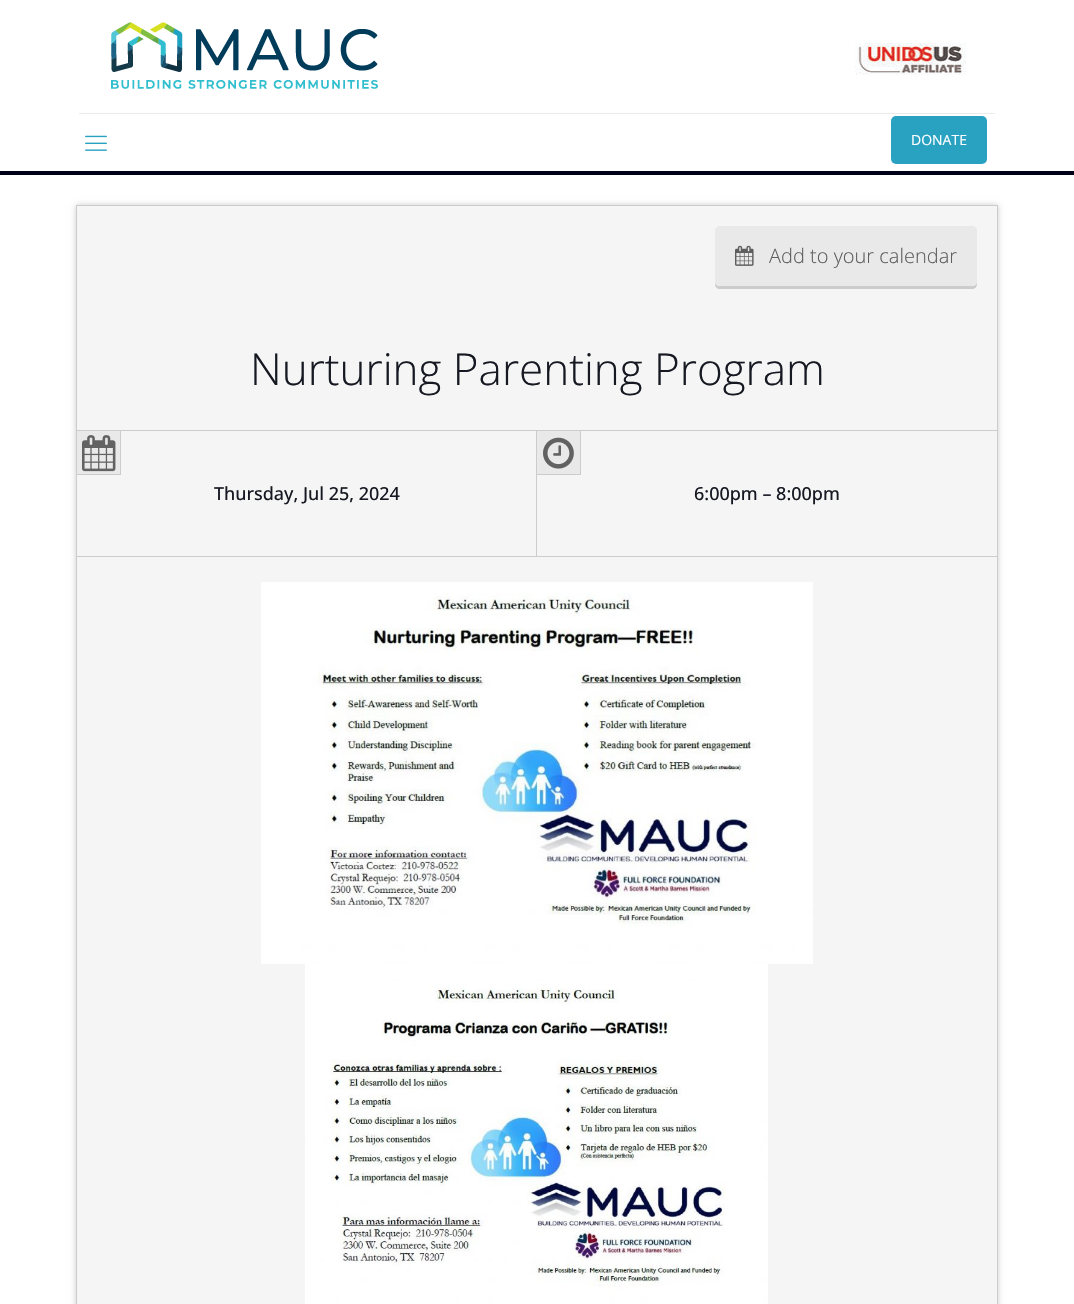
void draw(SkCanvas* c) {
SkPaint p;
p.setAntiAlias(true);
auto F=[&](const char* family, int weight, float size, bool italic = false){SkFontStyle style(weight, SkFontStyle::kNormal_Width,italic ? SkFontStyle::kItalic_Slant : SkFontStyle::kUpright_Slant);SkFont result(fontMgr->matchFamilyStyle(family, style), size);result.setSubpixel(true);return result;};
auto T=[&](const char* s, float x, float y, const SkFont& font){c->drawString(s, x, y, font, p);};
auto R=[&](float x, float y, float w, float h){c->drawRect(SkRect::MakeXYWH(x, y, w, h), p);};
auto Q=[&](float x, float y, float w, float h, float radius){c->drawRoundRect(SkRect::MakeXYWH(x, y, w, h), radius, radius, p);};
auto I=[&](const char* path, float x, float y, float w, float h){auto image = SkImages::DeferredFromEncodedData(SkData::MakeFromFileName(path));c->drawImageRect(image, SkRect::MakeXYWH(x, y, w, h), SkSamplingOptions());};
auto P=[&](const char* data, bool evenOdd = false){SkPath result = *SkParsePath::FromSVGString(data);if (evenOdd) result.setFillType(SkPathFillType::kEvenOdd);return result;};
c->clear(0xffffffff);
p.setColor(0xff000119);
R(0,171,1074,4);
p.setColor(0xffebebeb);
R(79,113,916,1);
I("1.png",111,22,267,67);
I("2.png",855,43,111,32);
I("3.png",85,135,22,16);
p.setColor(0xff29a2c2);
Q(891,116,96,48,5);
auto f1 = F("Open Sans",400,14);
p.setColor(0xffffffff);
T("DONATE",911,145,f1);
p.setColor(0xffcccccc);
p.setMaskFilter(SkMaskFilter::MakeBlur(kNormal_SkBlurStyle, 3));
c->drawRect(SkRect::MakeXYWH(76,205,922,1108),p);
p.setMaskFilter(nullptr);
p.setColor(0xfff5f5f5);
c->drawRect(SkRect::MakeXYWH(76.5,205.5,921,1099),p);
p.setStroke(true);
p.setStrokeWidth(1);
p.setColor(0xffcccccc);
c->drawRect(SkRect::MakeXYWH(76.5,205.5,921,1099),p);
p.setStroke(false);
c->drawPath(P("M715 281v3c0 3 2 5 5 5h252c3 0 5-2 5-5v-3c0 3-2 5-5 5h-252c-3 0-5-2-5-5z"),p);
p.setColor(0xffe9e9e9);
Q(715,226,262,60,5);
I("4.png",735,245,19,21);
auto f2 = F("Open Sans",300,20);
p.setColor(0xff5e5e5e);
T("Add to your calendar",769,263,f2);
auto f3 = F("Open Sans",300,44);
p.setColor(0xff161922);
T("Nurturing Parenting Program",250,385,f3);
p.setColor(0xffcccccc);
R(77,430,920,1);
R(77,556,920,1);
R(536,431,1,125);
p.setColor(0xffe9e9e9);
R(77,431,43,43);
p.setColor(0xffcccccc);
R(120,431,1,44);
R(77,474,44,1);
I("5.png",82,435,34,37);
auto f4 = F("Open Sans",500,18);
p.setColor(0xff161922);
T("Thursday, Jul 25, 2024",214,500,f4);
p.setColor(0xffe9e9e9);
R(537,431,43,43);
p.setColor(0xffcccccc);
R(580,431,1,44);
R(537,474,44,1);
I("6.png",543,437,31,32);
p.setColor(0xff161922);
T("6:00pm – 8:00pm",694,500,f4);
I("7.png",261,582,552,382);
I("8.png",305,964,463,340);
}
